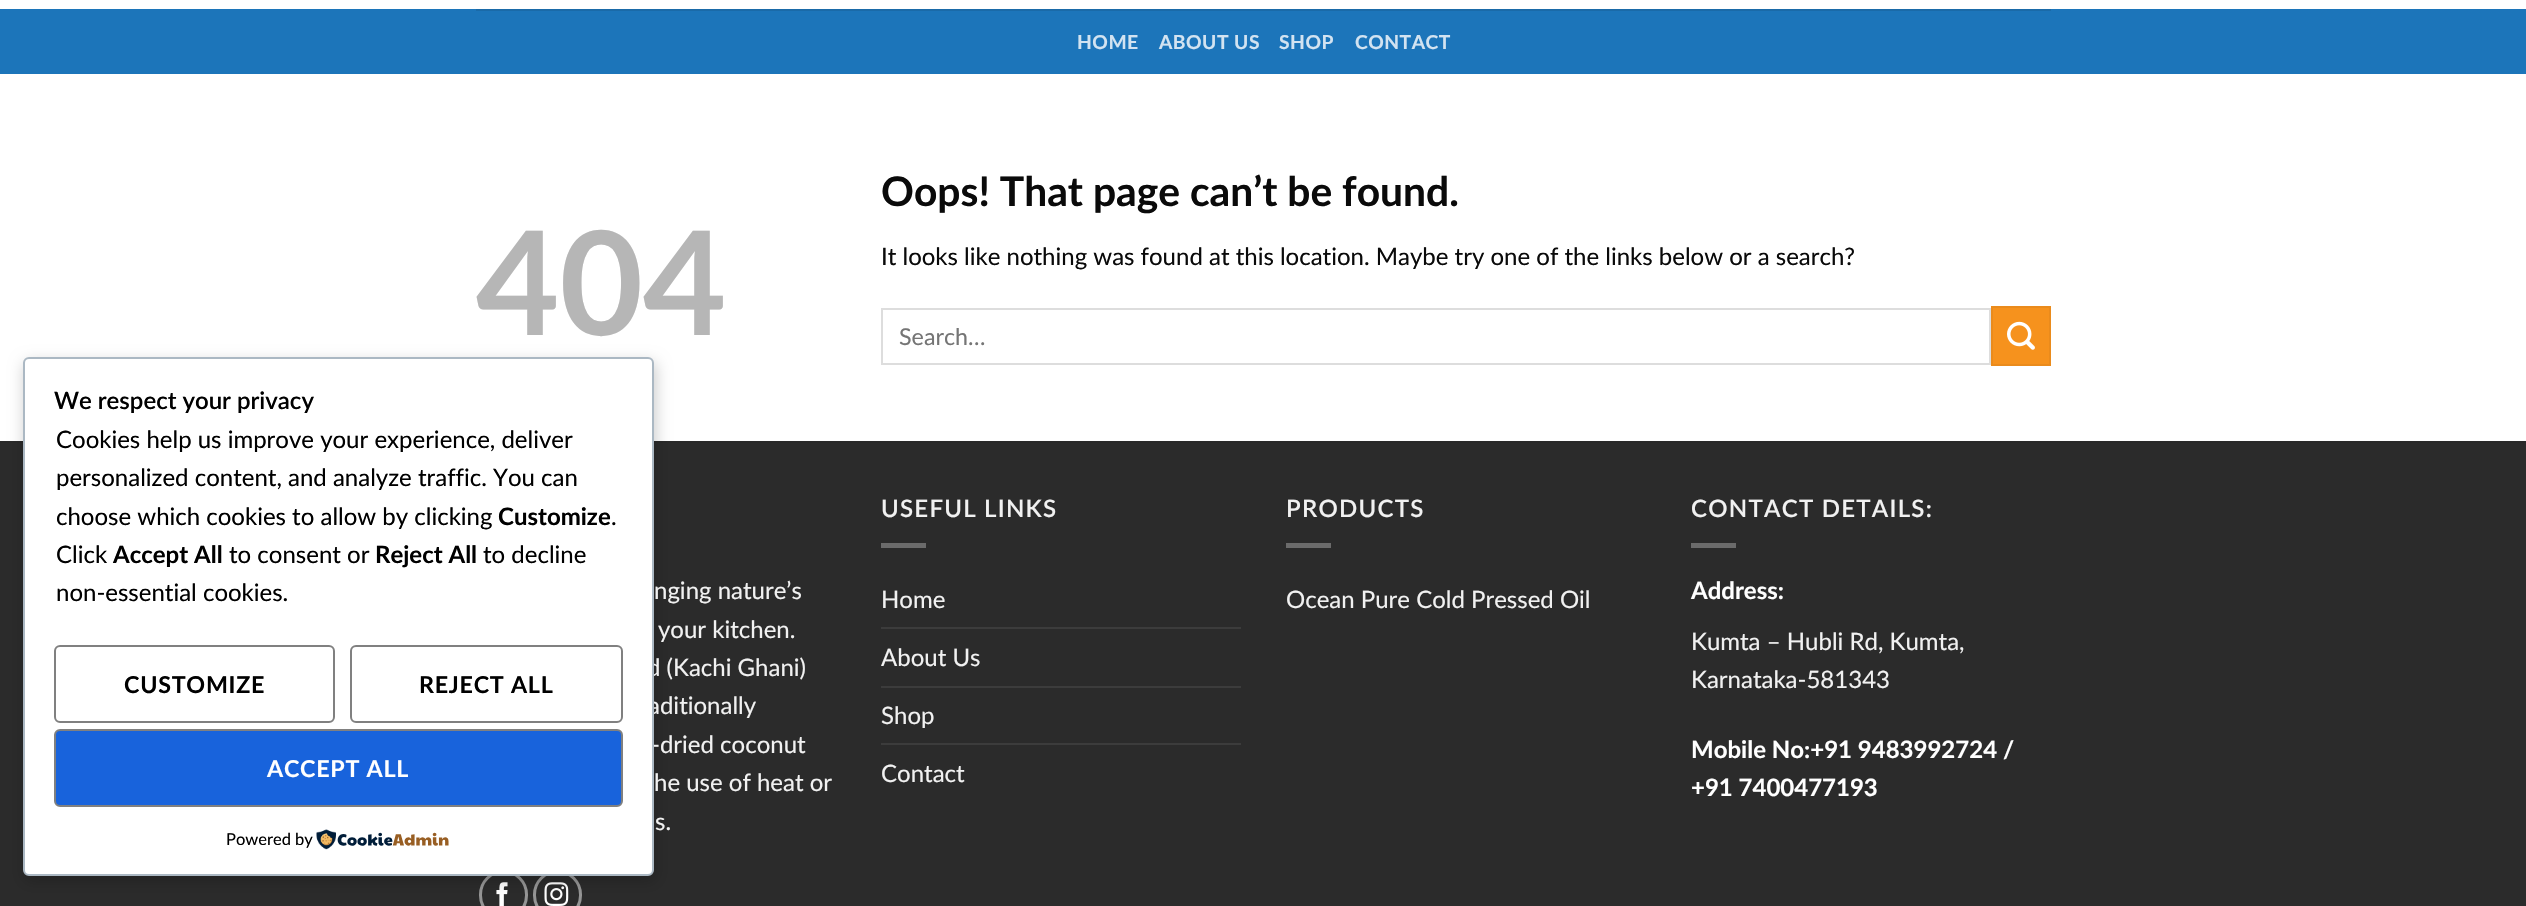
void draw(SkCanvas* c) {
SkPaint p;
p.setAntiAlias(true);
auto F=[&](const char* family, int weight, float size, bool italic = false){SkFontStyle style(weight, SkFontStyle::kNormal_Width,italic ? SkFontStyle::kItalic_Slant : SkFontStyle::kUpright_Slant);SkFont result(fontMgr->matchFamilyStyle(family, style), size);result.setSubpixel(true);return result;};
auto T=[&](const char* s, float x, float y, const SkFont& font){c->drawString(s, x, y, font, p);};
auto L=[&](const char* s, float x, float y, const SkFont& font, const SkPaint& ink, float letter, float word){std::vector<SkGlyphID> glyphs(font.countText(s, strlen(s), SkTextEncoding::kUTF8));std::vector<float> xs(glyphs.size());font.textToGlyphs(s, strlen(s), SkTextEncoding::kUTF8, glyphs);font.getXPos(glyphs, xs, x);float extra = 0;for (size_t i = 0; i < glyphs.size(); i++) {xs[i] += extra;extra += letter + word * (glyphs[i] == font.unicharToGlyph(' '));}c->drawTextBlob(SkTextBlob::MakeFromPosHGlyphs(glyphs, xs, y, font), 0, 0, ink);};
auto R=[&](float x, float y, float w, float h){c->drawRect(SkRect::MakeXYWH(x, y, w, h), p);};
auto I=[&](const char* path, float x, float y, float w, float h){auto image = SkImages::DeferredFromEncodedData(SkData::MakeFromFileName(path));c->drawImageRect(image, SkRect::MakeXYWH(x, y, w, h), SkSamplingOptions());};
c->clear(0xffffffff);
p.setColor(0xff2b2b2b);
R(0,443,2526,463);
p.setColor(0xff292929);
R(0,441,2526,2);
p.setStroke(true);
p.setStrokeWidth(3);
p.setColor(0xff959595);
c->drawRoundRect(SkRect::MakeXYWH(480.5,871.5,46,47),23,23,p);
I("3.png",496,882,12,24);
c->drawRoundRect(SkRect::MakeXYWH(534.5,871.5,46,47),23,23,p);
I("4.png",544,882,25,24);
p.setStroke(false);
p.setColor(0x33000000);
p.setMaskFilter(SkMaskFilter::MakeBlur(kNormal_SkBlurStyle, 7.5));
c->drawRoundRect(SkRect::MakeXYWH(24,362,632,519),6,6,p);
p.setMaskFilter(nullptr);
auto f1 = F("Lato",400,24);
p.setColor(0xfff1f1f1);
T("d (Kachi Ghani)",647,676,f1);
T("aditionally",648,714,f1);
T("-dried coconut",651,753,f1);
p.setColor(0xffffffff);
c->drawRoundRect(SkRect::MakeXYWH(24,358,629,517),5,5,p);
p.setStroke(true);
p.setStrokeWidth(2);
p.setColor(0xffabb8c3);
c->drawRoundRect(SkRect::MakeXYWH(24,358,629,517),5,5,p);
auto f2 = F("Lato",600,24);
p.setStroke(false);
p.setColor(0xff000000);
T("We respect your privacy",54,409,f2);
T("Cookies help us improve your experience, deliver",56,448,f1);
T("personalized content, and analyze traffic. You can",56,486,f1);
T("choose which cookies to allow by clicking",56,525,f1);
auto f3 = F("Lato",700,24);
T("Customize",498,525,f3);
T(".",611,525,f1);
T("Click",56,563,f1);
T("Accept All",113,563,f3);
T("to consent or",229,563,f1);
T("Reject All",375,563,f3);
T("to decline",483,563,f1);
T("non-essential cookies.",56,601,f1);
p.setStroke(true);
p.setColor(0xff808080);
c->drawRoundRect(SkRect::MakeXYWH(55,646,279,76),5,5,p);
auto f4 = F("Lato",700,23.25);
p.setStroke(false);
p.setColor(0xff000000);
L("CUSTOMIZE",124,693,f4,p,.75,0);
p.setStroke(true);
p.setColor(0xff808080);
c->drawRoundRect(SkRect::MakeXYWH(351,646,271,76),5,5,p);
p.setStroke(false);
p.setColor(0xff000000);
L("REJECT ALL",419,693,f4,p,.75,0);
p.setColor(0xff1863dc);
c->drawRoundRect(SkRect::MakeXYWH(55,730,567,76),5,5,p);
p.setStroke(true);
p.setColor(0xff808080);
c->drawRoundRect(SkRect::MakeXYWH(55,730,567,76),5,5,p);
p.setStroke(false);
p.setColor(0xffffffff);
L("ACCEPT ALL",267,777,f4,p,.75,0);
auto f5 = F("Lato",400,16.5);
p.setColor(0xff000000);
T("Powered by",226,845,f5);
I("1.png",316,829,133,21);
p.setColor(0xff1c75ba);
R(0,9,2526,65);
p.setColor(0xff1a6aa8);
R(476,9,1575,2);
auto f6 = F("Lato",700,19.25);
p.setColor(0xffd2e3f1);
L("HOME",1077,49,f6,p,.5,0);
L("ABOUT US",1159,49,f6,p,.5,0);
L("SHOP",1279,49,f6,p,.5,0);
L("CONTACT",1355,49,f6,p,.5,0);
auto f7 = F("Lato",700,144);
p.setColor(0xffb6b6b6);
T("404",476,335,f7);
auto f8 = F("Lato",700,40.75);
p.setColor(0xff0a0a0a);
T("Oops! That page can’t be found.",881,206,f8);
T("It looks like nothing was found at this location. Maybe try one of the links below or a search?",881,265,f1);
p.setStroke(true);
p.setColor(0xffdddddd);
c->drawRect(SkRect::MakeXYWH(882,309,1108,55),p);
auto f9 = F("Lato",400,23.25);
p.setStroke(false);
p.setColor(0xff757575);
T("Search…",899,345,f9);
p.setColor(0xfff6921d);
c->drawRect(SkRect::MakeXYWH(1992,307,58,58),p);
p.setStroke(true);
p.setColor(0xffea8b1c);
c->drawRect(SkRect::MakeXYWH(1992,307,58,58),p);
I("2.png",2007,321,28,29);
p.setStroke(false);
p.setColor(0xfff1f1f1);
T("nging nature’s",654,599,f1);
T("your kitchen.",658,638,f1);
T("he use of heat or",654,791,f1);
T("s.",655,830,f1);
L("USEFUL LINKS",881,517,f2,p,1.25,0);
p.setColor(0xff6b6b6b);
R(881,543,45,5);
p.setColor(0xfff1f1f1);
T("Home",881,608,f1);
p.setColor(0xff3c3c3c);
R(881,627,360,2);
p.setColor(0xfff1f1f1);
T("About Us",881,666,f1);
p.setColor(0xff3c3c3c);
R(881,686,360,2);
p.setColor(0xfff1f1f1);
T("Shop",881,724,f1);
p.setColor(0xff3c3c3c);
R(881,743,360,2);
p.setColor(0xfff1f1f1);
T("Contact",881,782,f1);
L("PRODUCTS",1286,517,f2,p,1.25,0);
p.setColor(0xff6b6b6b);
R(1286,543,45,5);
p.setColor(0xfff1f1f1);
T("Ocean Pure Cold Pressed Oil",1286,608,f1);
L("CONTACT DETAILS:",1691,517,f2,p,1.25,0);
p.setColor(0xff6b6b6b);
R(1691,543,45,5);
p.setColor(0xffffffff);
T("Address:",1691,599,f3);
p.setColor(0xfff1f1f1);
T("Kumta – Hubli Rd, Kumta,",1691,650,f1);
T("Karnataka-581343",1691,688,f1);
p.setColor(0xffffffff);
T("Mobile No:+91 9483992724 /",1691,758,f3);
T("+91 7400477193",1691,796,f3);
}
